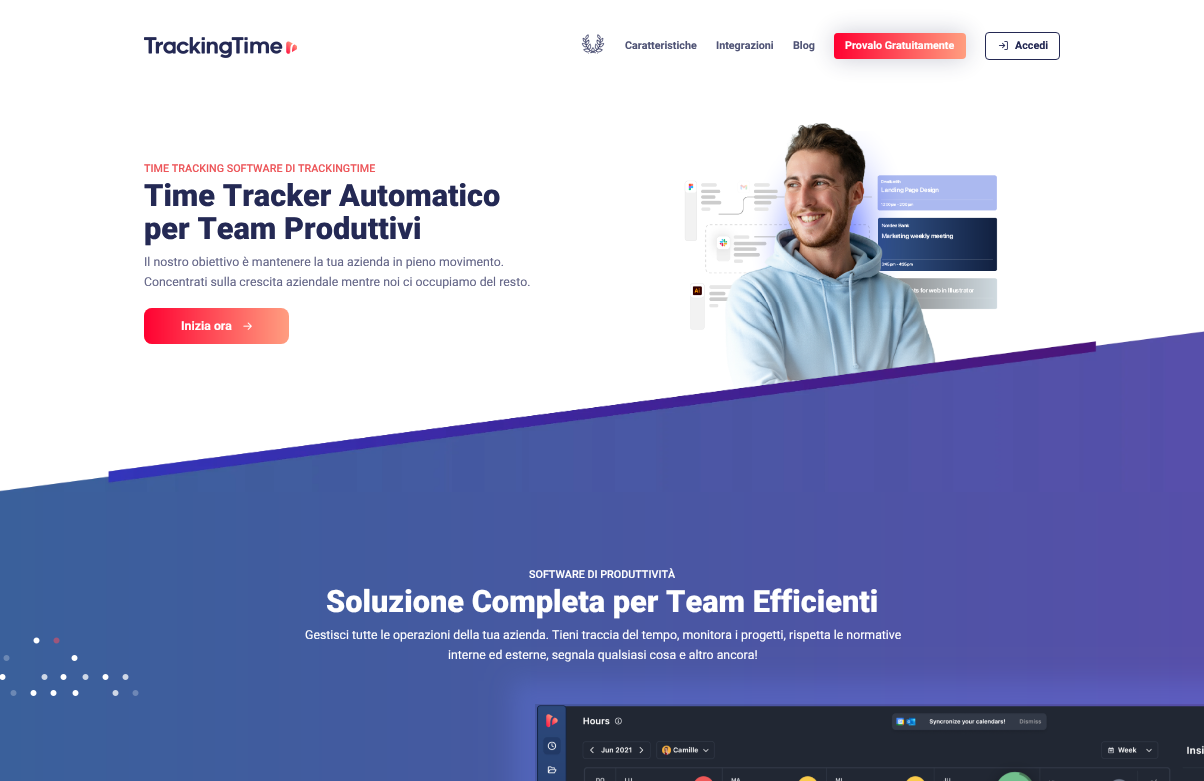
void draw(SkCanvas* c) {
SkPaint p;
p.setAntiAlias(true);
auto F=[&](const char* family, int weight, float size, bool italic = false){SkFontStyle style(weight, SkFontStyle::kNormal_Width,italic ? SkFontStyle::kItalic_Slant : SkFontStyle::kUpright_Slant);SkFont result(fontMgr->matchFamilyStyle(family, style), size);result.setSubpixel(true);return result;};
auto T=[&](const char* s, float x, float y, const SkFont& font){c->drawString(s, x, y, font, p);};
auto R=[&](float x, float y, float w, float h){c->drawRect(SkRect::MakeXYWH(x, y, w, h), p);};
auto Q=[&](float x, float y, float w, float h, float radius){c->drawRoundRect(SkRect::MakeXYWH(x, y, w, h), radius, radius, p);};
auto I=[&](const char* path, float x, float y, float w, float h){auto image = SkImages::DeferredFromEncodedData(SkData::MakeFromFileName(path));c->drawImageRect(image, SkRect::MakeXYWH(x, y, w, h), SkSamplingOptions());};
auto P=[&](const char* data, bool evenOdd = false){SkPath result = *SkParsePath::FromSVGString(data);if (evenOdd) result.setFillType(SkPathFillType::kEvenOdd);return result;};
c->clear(0xffffffff);
I("1.png",144,37,153,21);
I("2.png",581,34,24,20);
auto f1 = F("Roboto",700,10.75);
p.setColor(0xff505476);
T("Caratteristiche",625,49,f1);
T("Integrazioni",716,49,f1);
T("Blog",793,49,f1);
p.setColor(0x40242954);
p.setMaskFilter(SkMaskFilter::MakeBlur(kNormal_SkBlurStyle, 12));
c->drawRoundRect(SkRect::MakeXYWH(834,33,132,26),4,4,p);
p.setMaskFilter(nullptr);
p.setColor(0xffff9e80);
Q(834,33,132,26,4);
{
const SkColor colors[] = {0xffff0031,0x00ff0031};
const float stops[] = {0,1};
const SkPoint ends[] = {{834,46}, {966,46}};
p.setShader(SkGradientShader::MakeLinear(ends, colors, stops, 2, SkTileMode::kClamp));
p.setAlpha(255);
}
Q(834,33,132,26,4);
p.setShader(nullptr);
p.setColor(0xffffffff);
T("Provalo Gratuitamente",845,49,f1);
p.setStroke(true);
p.setStrokeWidth(1);
p.setColor(0xff242954);
c->drawRoundRect(SkRect::MakeXYWH(985.5,32.5,74,27),3.5,3.5,p);
I("3.png",998,41,10,9);
p.setStroke(false);
T("Accedi",1015,49,f1);
auto f2 = F("Roboto",500,10.75);
p.setColor(0xffed565a);
T("TIME TRACKING SOFTWARE DI TRACKINGTIME",144,172,f2);
auto f3 = F("Roboto",900,30.75);
p.setColor(0xff242954);
T("Time Tracker Automatico",144,206,f3);
T("per Team Produttivi",144,239,f3);
auto f4 = F("Roboto",400,12.3);
p.setColor(0xff636587);
T("Il nostro obiettivo è mantenere la tua azienda in pieno movimento.",144,266,f4);
T("Concentrati sulla crescita aziendale mentre noi ci occupiamo del resto.",144,286,f4);
p.setColor(0xffff9e80);
Q(144,308,145,36,8);
{
const SkColor colors[] = {0xffff0031,0x00ff0031};
const float stops[] = {0,1};
const SkPoint ends[] = {{144,326}, {289,326}};
p.setShader(SkGradientShader::MakeLinear(ends, colors, stops, 2, SkTileMode::kClamp));
p.setAlpha(255);
}
Q(144,308,145,36,8);
auto f5 = F("Roboto",700,12.3);
p.setShader(nullptr);
p.setColor(0xffffffff);
T("Inizia ora",181,330,f5);
I("4.png",243,322,9,8);
I("6.png",684,131,314,206);
I("5.png",725,123,211,267);
I("7.png",0,331,1204,161);
{
const SkColor colors[] = {0xff3a609b,0xff564fa9};
const float stops[] = {0,1};
const SkPoint ends[] = {{0,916}, {1204,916}};
p.setShader(SkGradientShader::MakeLinear(ends, colors, stops, 2, SkTileMode::kClamp));
p.setAlpha(255);
}
R(0,492,1204,289);
p.setShader(nullptr);
p.setColor(0xffffffff);
T("SOFTWARE DI PRODUTTIVITÀ",529,578,f2);
T("Soluzione Completa per Team Efficienti",326,612,f3);
T("Gestisci tutte le operazioni della tua azienda. Tieni traccia del tempo, monitora i progetti, rispetta le normative",305,639,f4);
T("interne ed esterne, segnala qualsiasi cosa e altro ancora!",448,659,f4);
I("8.png",0,637,139,59);
c->save();
c->clipPath(P("M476 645h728v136h-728zm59 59h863v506h-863z",true),true);
p.setColor(0x407183ff);
p.setMaskFilter(SkMaskFilter::MakeBlur(kNormal_SkBlurStyle, 11.5));
c->drawRect(SkRect::MakeXYWH(512,681,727,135),p);
p.setMaskFilter(nullptr);
c->restore();
I("9.png",537,705,667,76);
}
